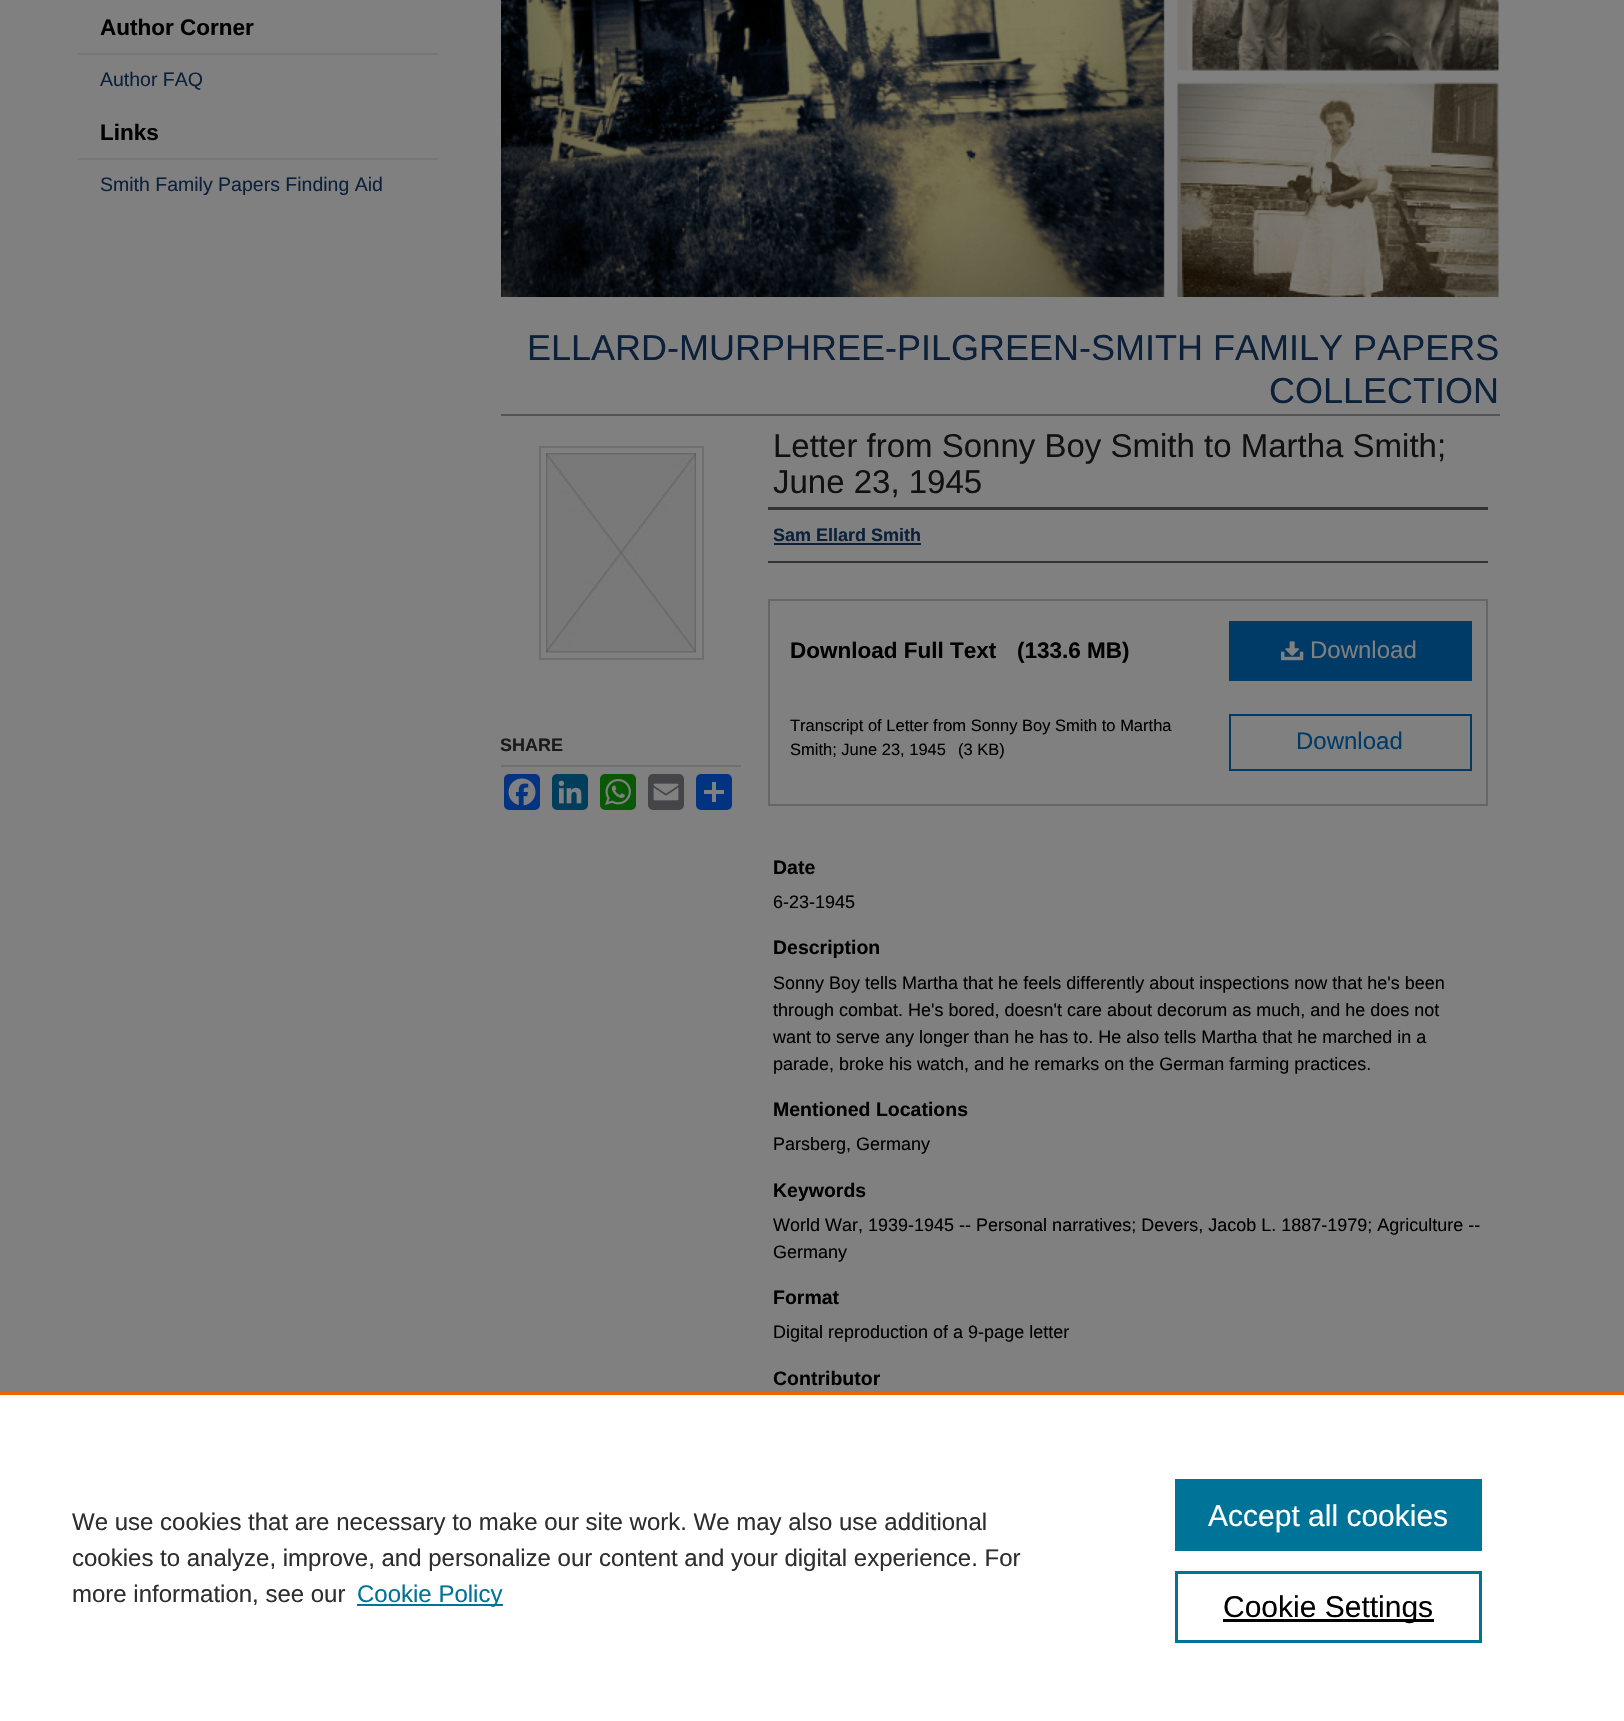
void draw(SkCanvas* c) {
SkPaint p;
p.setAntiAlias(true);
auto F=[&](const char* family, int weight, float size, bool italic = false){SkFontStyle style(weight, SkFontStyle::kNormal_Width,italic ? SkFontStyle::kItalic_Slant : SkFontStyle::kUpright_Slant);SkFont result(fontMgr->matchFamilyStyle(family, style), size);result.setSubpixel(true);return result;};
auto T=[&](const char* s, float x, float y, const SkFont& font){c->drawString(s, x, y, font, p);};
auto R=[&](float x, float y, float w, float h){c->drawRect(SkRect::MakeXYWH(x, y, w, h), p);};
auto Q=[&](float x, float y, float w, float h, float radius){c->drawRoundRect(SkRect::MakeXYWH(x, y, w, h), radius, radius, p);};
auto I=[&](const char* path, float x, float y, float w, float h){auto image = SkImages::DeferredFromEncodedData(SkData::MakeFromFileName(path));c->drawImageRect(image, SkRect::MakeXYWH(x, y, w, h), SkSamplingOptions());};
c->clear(0xff808080);
p.setColor(0xff767676);
R(78,53,360,2);
auto f1 = F("Liberation Sans",700,22.5);
p.setColor(0xff000000);
T("Author Corner",100,35,f1);
auto f2 = F("Liberation Sans",400,19.5);
p.setColor(0xff0c203a);
T("Author FAQ",100,86,f2);
p.setColor(0xff767676);
R(78,158,360,2);
p.setColor(0xff000000);
T("Links",100,140,f1);
p.setColor(0xff0c203a);
T("Smith Family Papers Finding Aid",100,191,f2);
I("1.png",501,0,998,297);
auto f3 = F("Liberation Sans",400,36);
T("ELLARD-MURPHREE-PILGREEN-SMITH FAMILY PAPERS",527,360,f3);
T("COLLECTION",1269,403,f3);
p.setStroke(true);
p.setStrokeWidth(2);
p.setColor(0xff6f6f6f);
c->drawRect(SkRect::MakeXYWH(540,447,163,212),p);
I("2.png",546,453,150,200);
p.setStroke(false);
R(501,765,240,2);
auto f4 = F("Liberation Sans",700,18);
p.setColor(0xff1a1a1a);
T("SHARE",500,751,f4);
p.setColor(0xff043380);
Q(504,774,36,36,5);
I("3.png",508,778,28,28);
p.setColor(0xff003e5b);
Q(552,774,36,36,5);
I("4.png",558,780,24,24);
p.setColor(0xff095805);
Q(600,774,36,36,5);
I("5.png",605,779,26,26);
p.setColor(0xff444548);
Q(648,774,36,36,5);
I("6.png",653,783,26,18);
p.setColor(0xff013380);
Q(696,774,36,36,5);
p.setColor(0xff808080);
R(712,782,4,20);
R(704,790,20,4);
p.setColor(0xff555555);
R(501,414,999,2);
auto f5 = F("Liberation Sans",400,33);
p.setColor(0xff111111);
T("Letter from Sonny Boy Smith to Martha Smith;",773,457,f5);
T("June 23, 1945",773,493,f5);
p.setColor(0xff333333);
R(768,507,720,3);
R(768,561,720,2);
p.setColor(0xff0c203a);
T("Sam Ellard Smith",773,541,f4);
R(774,543,147,2);
p.setStroke(true);
p.setColor(0xff666666);
c->drawRect(SkRect::MakeXYWH(769,600,718,205),p);
p.setStroke(false);
p.setColor(0xff000000);
T("Download Full Text",790,658,f1);
T("(133.6 MB)",1017,658,f1);
p.setColor(0xff003a66);
R(1229,621,243,60);
I("7.png",1281,641,23,20);
auto f6 = F("Liberation Sans",400,24);
p.setColor(0xff808080);
T("Download",1310,658,f6);
auto f7 = F("Liberation Sans",400,16.5);
p.setColor(0xff000000);
T("Transcript of Letter from Sonny Boy Smith to Martha",790,731,f7);
T("Smith; June 23, 1945",790,755,f7);
T("(3 KB)",958,755,f7);
p.setStroke(true);
p.setColor(0xff003a66);
c->drawRect(SkRect::MakeXYWH(1230,715,241,55),p);
p.setStroke(false);
T("Download",1296,749,f6);
auto f8 = F("Liberation Sans",700,19.5);
p.setColor(0xff000000);
T("Date",773,874,f8);
auto f9 = F("Liberation Sans",400,18);
T("6-23-1945",773,908,f9);
T("Description",773,954,f8);
T("Sonny Boy tells Martha that he feels differently about inspections now that he's been",773,989,f9);
T("through combat. He's bored, doesn't care about decorum as much, and he does not",773,1016,f9);
T("want to serve any longer than he has to. He also tells Martha that he marched in a",773,1043,f9);
T("parade, broke his watch, and he remarks on the German farming practices.",773,1070,f9);
T("Mentioned Locations",773,1116,f8);
T("Parsberg, Germany",773,1150,f9);
T("Keywords",773,1197,f8);
T("World War, 1939-1945 -- Personal narratives; Devers, Jacob L. 1887-1979; Agriculture --",773,1231,f9);
T("Germany",773,1258,f9);
T("Format",773,1304,f8);
T("Digital reproduction of a 9-page letter",773,1338,f9);
T("Contributor",773,1385,f8);
p.setColor(0xffffffff);
R(0,1395,1624,326);
p.setColor(0xffeb6500);
R(0,1392,1624,3);
p.setColor(0xff2e2e2e);
T("We use cookies that are necessary to make our site work. We may also use additional",72,1530,f6);
T("cookies to analyze, improve, and personalize our content and your digital experience. For",72,1566,f6);
T("more information, see our",72,1602,f6);
p.setColor(0xff007398);
R(357,1604,146,2);
T("Cookie Policy",357,1602,f6);
R(1175,1479,307,72);
auto f10 = F("Liberation Sans",400,30);
p.setColor(0xffffffff);
T("Accept all cookies",1208,1526,f10);
p.setStroke(true);
p.setStrokeWidth(3);
p.setColor(0xff007398);
c->drawRect(SkRect::MakeXYWH(1176.5,1572.5,304,69),p);
p.setStroke(false);
p.setColor(0xff000000);
R(1223,1619,211,3);
T("Cookie Settings",1223,1617,f10);
}
